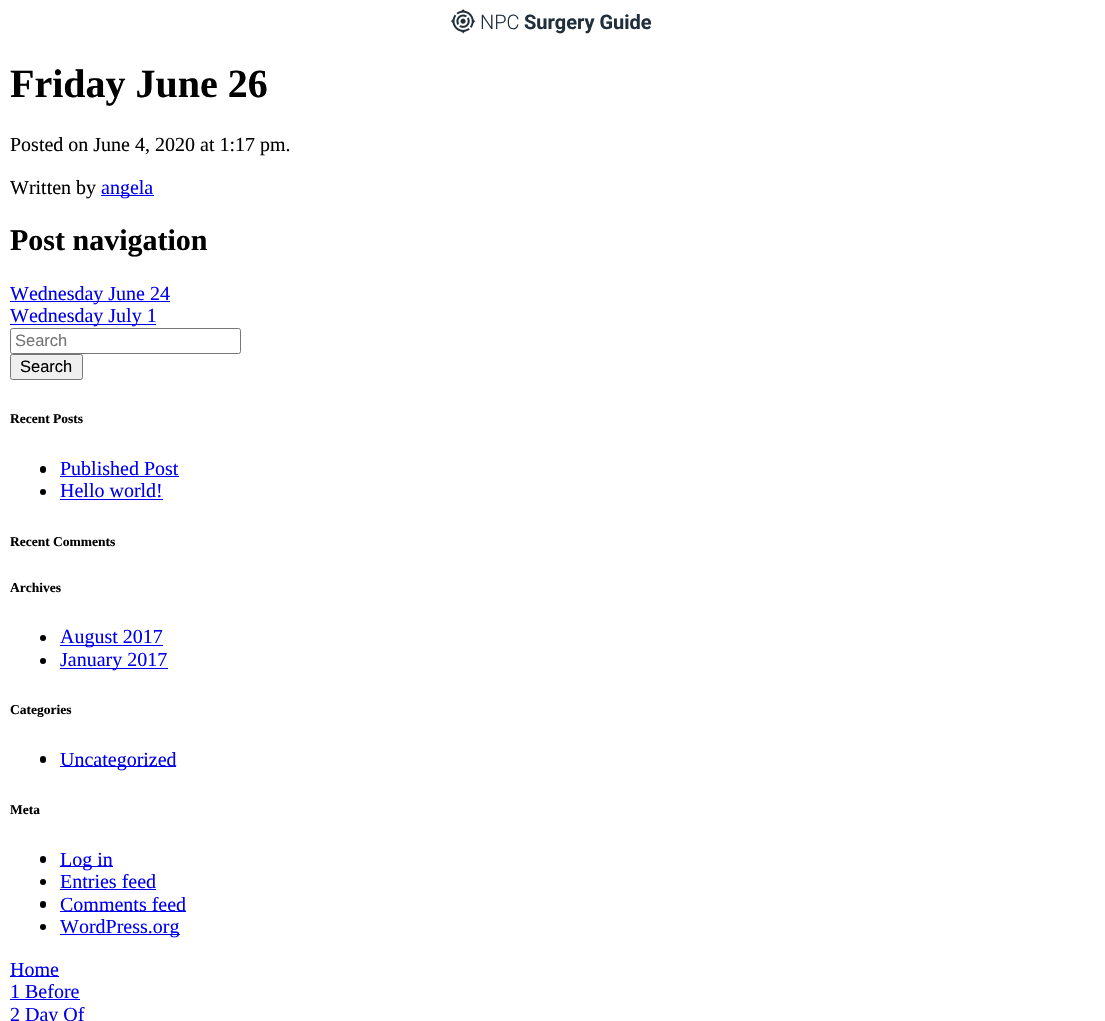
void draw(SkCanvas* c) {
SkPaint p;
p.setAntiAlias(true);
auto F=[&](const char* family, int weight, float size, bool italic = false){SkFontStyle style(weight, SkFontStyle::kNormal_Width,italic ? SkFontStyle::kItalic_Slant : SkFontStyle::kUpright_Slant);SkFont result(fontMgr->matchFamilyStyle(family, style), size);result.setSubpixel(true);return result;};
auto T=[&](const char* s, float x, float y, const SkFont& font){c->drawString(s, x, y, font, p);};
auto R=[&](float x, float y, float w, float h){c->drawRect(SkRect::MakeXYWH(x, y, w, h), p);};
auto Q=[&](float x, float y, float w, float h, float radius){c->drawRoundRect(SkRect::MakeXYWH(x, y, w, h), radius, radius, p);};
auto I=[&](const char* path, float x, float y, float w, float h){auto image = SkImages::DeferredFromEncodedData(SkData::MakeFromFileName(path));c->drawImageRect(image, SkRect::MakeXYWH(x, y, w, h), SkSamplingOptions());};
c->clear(0xffffffff);
I("1.png",450,9,26,25);
auto f1 = F("Roboto",300,20);
p.setColor(0xff212f3c);
T("NPC",480,29,f1);
auto f2 = F("Roboto",700,20);
T("Surgery Guide",524,29,f2);
auto f3 = F("Liberation Serif",700,40);
p.setColor(0xff000000);
T("Friday June 26",10,97,f3);
auto f4 = F("Liberation Serif",400,20);
T("Posted on June 4, 2020 at 1:17 pm.",10,151,f4);
T("Written by",10,194,f4);
p.setColor(0xff0000ee);
R(101,195,53,1);
T("angela",101,194,f4);
auto f5 = F("Liberation Serif",700,30);
p.setColor(0xff000000);
T("Post navigation",10,250,f5);
p.setColor(0xff0000ee);
R(10,301,160,1);
T("Wednesday June 24",10,300,f4);
R(10,324,146,1);
T("Wednesday July 1",10,322,f4);
p.setStroke(true);
p.setStrokeWidth(1);
p.setColor(0xff767676);
c->drawRoundRect(SkRect::MakeXYWH(10.5,328.5,230,25),2,2,p);
auto f6 = F("Liberation Sans",400,16.5);
p.setStroke(false);
p.setColor(0xff757575);
T("Search",15,346,f6);
p.setColor(0xffefefef);
c->drawRoundRect(SkRect::MakeXYWH(10.5,354.5,72,25),2,2,p);
p.setStroke(true);
p.setColor(0xff767676);
c->drawRoundRect(SkRect::MakeXYWH(10.5,354.5,72,25),2,2,p);
p.setStroke(false);
p.setColor(0xff000000);
T("Search",20,372,f6);
auto f7 = F("Liberation Serif",700,13.5);
T("Recent Posts",10,423,f7);
Q(40,466,6,7,3);
p.setColor(0xff0000ee);
T("Published Post",60,475,f4);
R(60,476,119,1);
p.setColor(0xff000000);
c->drawCircle(43,492,3,p);
p.setColor(0xff0000ee);
T("Hello world!",60,497,f4);
R(60,499,103,1);
p.setColor(0xff000000);
T("Recent Comments",10,546,f7);
T("Archives",10,592,f7);
c->drawCircle(43,638,3,p);
p.setColor(0xff0000ee);
R(60,645,103,1);
T("August 2017",60,643,f4);
p.setColor(0xff000000);
c->drawCircle(43,661,3,p);
p.setColor(0xff0000ee);
R(60,668,108,1);
T("January 2017",60,666,f4);
p.setColor(0xff000000);
T("Categories",10,714,f7);
Q(40,756,6,7,3);
p.setColor(0xff0000ee);
R(60,766,116,1);
T("Uncategorized",60,766,f4);
p.setColor(0xff000000);
T("Meta",10,814,f7);
Q(40,856,6,7,3);
p.setColor(0xff0000ee);
R(60,866,53,1);
T("Log in",60,866,f4);
p.setColor(0xff000000);
c->drawCircle(43,882,3,p);
p.setColor(0xff0000ee);
T("Entries feed",60,888,f4);
R(60,889,96,1);
p.setColor(0xff000000);
Q(40,901,6,7,3);
p.setColor(0xff0000ee);
R(60,911,126,1);
T("Comments feed",60,911,f4);
p.setColor(0xff000000);
c->drawCircle(43,927,3,p);
p.setColor(0xff0000ee);
R(60,934,120,1);
T("WordPress.org",60,933,f4);
R(10,976,49,1);
T("Home",10,976,f4);
T("1 Before",10,998,f4);
R(10,999,70,1);
T("2 Day Of",10,1021,f4);
}
